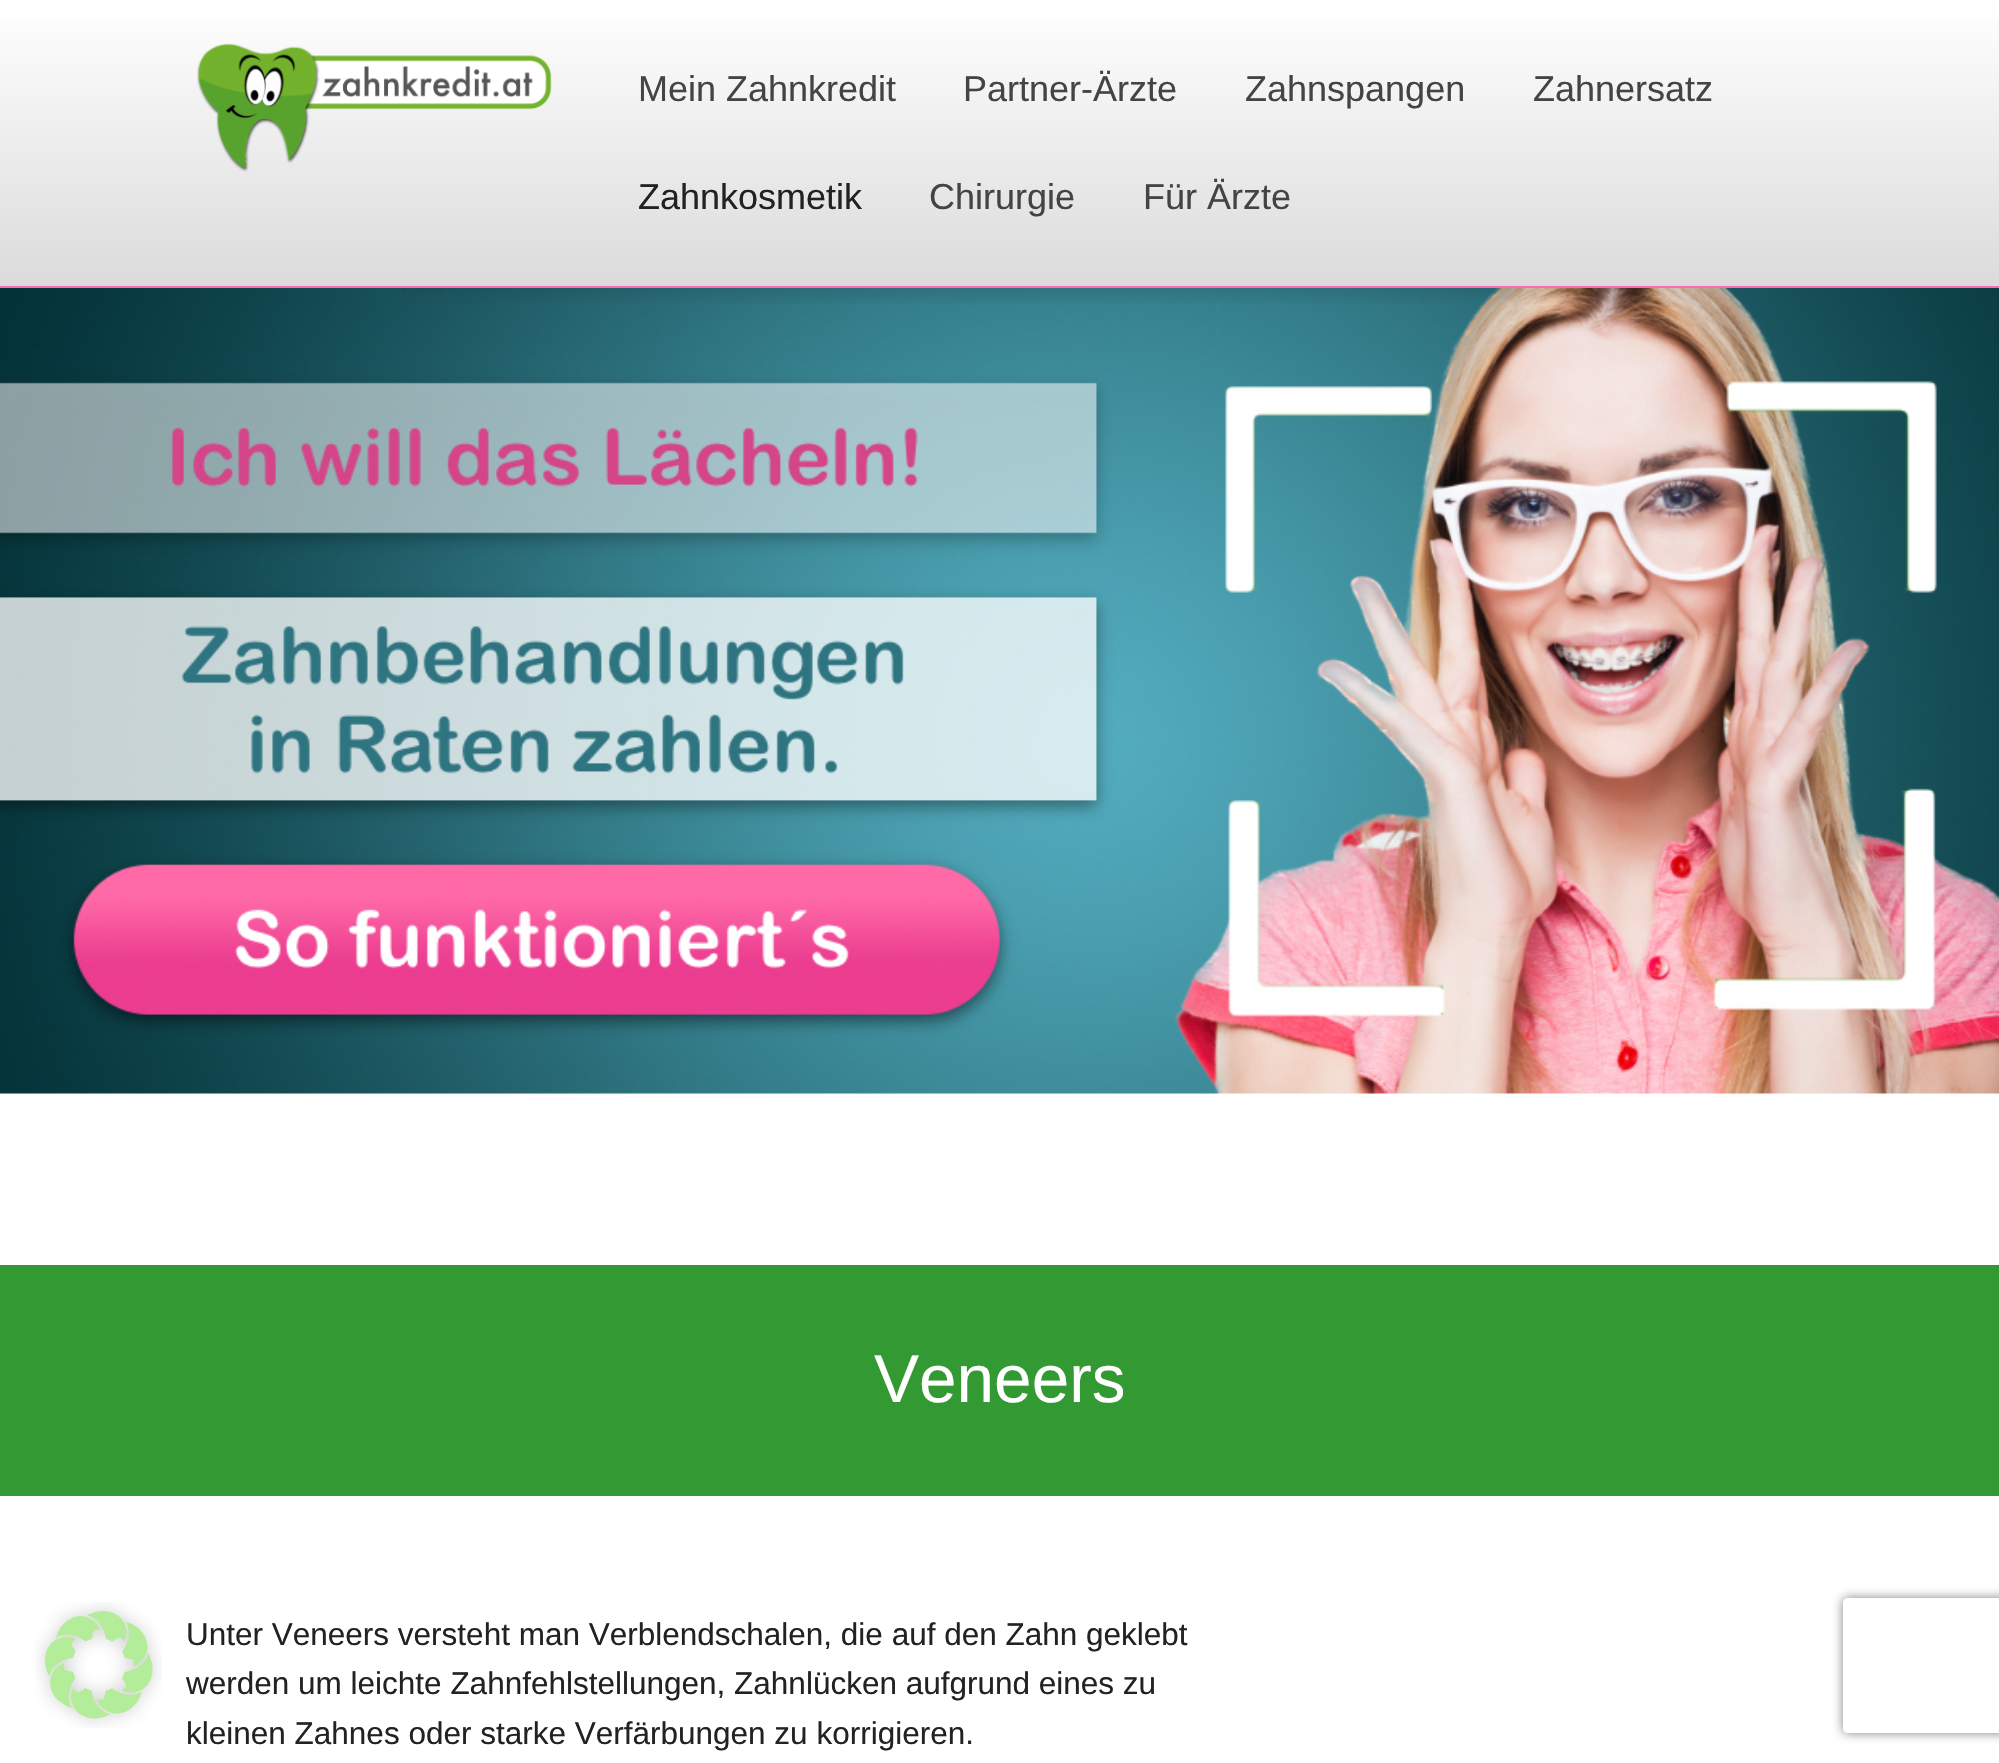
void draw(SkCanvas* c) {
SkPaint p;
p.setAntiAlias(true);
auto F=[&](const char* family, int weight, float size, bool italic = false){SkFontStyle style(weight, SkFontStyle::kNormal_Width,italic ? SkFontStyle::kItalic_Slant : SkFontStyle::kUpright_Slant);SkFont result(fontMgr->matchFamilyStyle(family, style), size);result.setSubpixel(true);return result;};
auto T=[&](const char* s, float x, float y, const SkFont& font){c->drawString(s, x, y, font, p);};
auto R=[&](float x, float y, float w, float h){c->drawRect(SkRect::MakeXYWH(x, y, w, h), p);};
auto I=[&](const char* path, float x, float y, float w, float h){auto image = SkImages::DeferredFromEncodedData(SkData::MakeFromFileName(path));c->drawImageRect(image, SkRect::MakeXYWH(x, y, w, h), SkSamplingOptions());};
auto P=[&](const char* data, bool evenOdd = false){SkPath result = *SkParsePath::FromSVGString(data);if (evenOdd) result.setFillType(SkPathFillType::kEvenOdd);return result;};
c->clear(0xffffffff);
I("1.png",35,1602,127,126);
{
const SkColor colors[] = {0xffffffff,0xffdbdbdb};
const float stops[] = {0,1};
const SkPoint ends[] = {{1000,0}, {1000,286}};
p.setShader(SkGradientShader::MakeLinear(ends, colors, stops, 2, SkTileMode::kClamp));
p.setAlpha(255);
}
R(0,20,1999,266);
p.setShader(nullptr);
p.setColor(0xffff6bab);
R(0,286,1999,2);
I("2.png",197,43,355,129);
auto f1 = F("Liberation Sans",400,36);
p.setColor(0xff444444);
T("Mein Zahnkredit",638,101,f1);
T("Partner-Ärzte",963,101,f1);
T("Zahnspangen",1245,101,f1);
T("Zahnersatz",1533,101,f1);
p.setColor(0xff222222);
T("Zahnkosmetik",638,209,f1);
p.setColor(0xff444444);
T("Chirurgie",929,209,f1);
T("Für Ärzte",1143,209,f1);
I("3.png",0,288,1999,806);
I("4.png",401,288,1326,16);
p.setColor(0xff339933);
R(0,1265,1999,231);
auto f2 = F("Liberation Sans",400,67.5);
p.setColor(0xffffffff);
T("Veneers",874,1402,f2);
auto f3 = F("Liberation Sans",400,31.5);
p.setColor(0xff222222);
T("Unter Veneers versteht man Verblendschalen, die auf den Zahn geklebt",186,1645,f3);
T("werden um leichte Zahnfehlstellungen, Zahnlücken aufgrund eines zu",186,1694,f3);
T("kleinen Zahnes oder starke Verfärbungen zu korrigieren.",186,1744,f3);
c->save();
c->clipPath(P("M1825 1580h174v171h-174zm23 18h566c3 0 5 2 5 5v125c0 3-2 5-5 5h-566c-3 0-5-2-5-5v-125c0-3 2-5 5-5z",true),true);
p.setColor(0xff808080);
p.setMaskFilter(SkMaskFilter::MakeBlur(kNormal_SkBlurStyle, 5.5));
c->drawRoundRect(SkRect::MakeXYWH(1843,1598,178,135),5,5,p);
p.setMaskFilter(nullptr);
c->restore();
}
